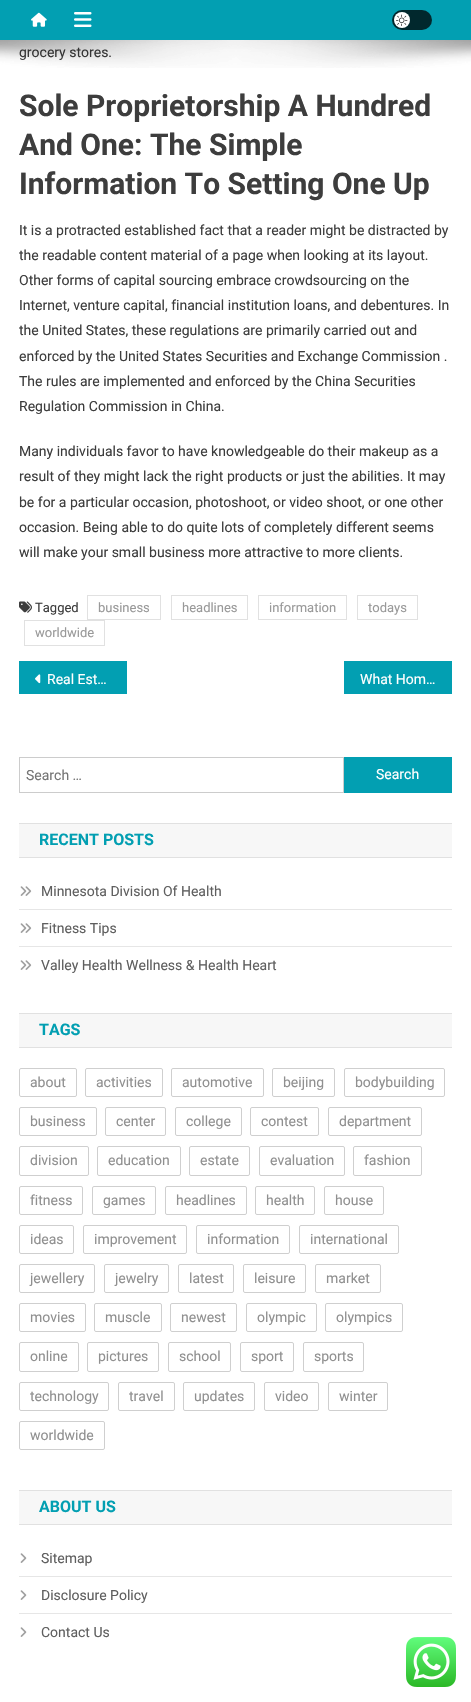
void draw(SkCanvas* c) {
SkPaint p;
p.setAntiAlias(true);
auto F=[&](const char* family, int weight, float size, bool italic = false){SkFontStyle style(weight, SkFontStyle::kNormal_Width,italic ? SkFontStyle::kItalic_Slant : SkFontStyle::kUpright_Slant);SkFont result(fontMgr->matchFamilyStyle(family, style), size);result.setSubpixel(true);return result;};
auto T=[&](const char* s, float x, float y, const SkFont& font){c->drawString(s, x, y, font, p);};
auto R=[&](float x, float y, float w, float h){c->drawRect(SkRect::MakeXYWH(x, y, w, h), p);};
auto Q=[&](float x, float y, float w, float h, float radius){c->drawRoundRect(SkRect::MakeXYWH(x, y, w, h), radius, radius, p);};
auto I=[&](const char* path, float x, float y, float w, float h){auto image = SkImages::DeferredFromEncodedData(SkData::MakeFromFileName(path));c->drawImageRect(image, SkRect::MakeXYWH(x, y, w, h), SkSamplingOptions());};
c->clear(0xffffffff);
p.setColor(0xff029fb2);
R(0,0,471,40);
I("1.png",31,12,16,15);
I("2.png",74,12,18,15);
p.setColor(0xff01282d);
Q(392,10,40,20,10);
p.setColor(0xffffffff);
c->drawCircle(402,20,8,p);
I("3.png",396,14,12,12);
auto f1 = F("Roboto",400,14);
p.setColor(0xff3d3d3d);
T("grocery stores.",19,57,f1);
I("4.png",0,40,471,28);
auto f2 = F("Roboto",700,30);
T("Sole Proprietorship A Hundred",19,116,f2);
T("And One: The Simple",19,155,f2);
T("Information To Setting One Up",19,194,f2);
T("It is a protracted established fact that a reader might be distracted by",19,235,f1);
T("the readable content material of a page when looking at its layout.",19,260,f1);
T("Other forms of capital sourcing embrace crowdsourcing on the",19,285,f1);
T("Internet, venture capital, financial institution loans, and debentures. In",19,310,f1);
T("the United States, these regulations are primarily carried out and",19,335,f1);
T("enforced by the United States Securities and Exchange Commission .",19,361,f1);
T("The rules are implemented and enforced by the China Securities",19,386,f1);
T("Regulation Commission in China.",19,411,f1);
T("Many individuals favor to have knowledgeable do their makeup as a",19,456,f1);
T("result of they might lack the right products or just the abilities. It may",19,481,f1);
T("be for a particular occasion, photoshoot, or video shoot, or one other",19,507,f1);
T("occasion. Being able to do quite lots of completely different seems",19,532,f1);
T("will make your small business more attractive to more clients.",19,557,f1);
I("5.png",19,601,13,12);
auto f3 = F("Roboto",400,13);
T("Tagged",35,612,f3);
p.setStroke(true);
p.setStrokeWidth(1);
p.setColor(0xffe1e1e1);
c->drawRect(SkRect::MakeXYWH(87.5,595.5,73,24),p);
p.setStroke(false);
p.setColor(0xff999999);
T("business",98,612,f3);
p.setStroke(true);
p.setColor(0xffe1e1e1);
c->drawRect(SkRect::MakeXYWH(171.5,595.5,76,24),p);
p.setStroke(false);
p.setColor(0xff999999);
T("headlines",182,612,f3);
p.setStroke(true);
p.setColor(0xffe1e1e1);
c->drawRect(SkRect::MakeXYWH(258.5,595.5,88,24),p);
p.setStroke(false);
p.setColor(0xff999999);
T("information",269,612,f3);
p.setStroke(true);
p.setColor(0xffe1e1e1);
c->drawRect(SkRect::MakeXYWH(357.5,595.5,60,24),p);
p.setStroke(false);
p.setColor(0xff999999);
T("todays",368,612,f3);
p.setStroke(true);
p.setColor(0xffe1e1e1);
c->drawRect(SkRect::MakeXYWH(24.5,620.5,80,25),p);
p.setStroke(false);
p.setColor(0xff999999);
T("worldwide",35,637,f3);
p.setColor(0xff029fb2);
R(19,661,108,33);
I("6.png",35,674,6,10);
p.setColor(0xffffffff);
T("Real Est…",47,684,f1);
p.setColor(0xff029fb2);
R(344,661,108,33);
p.setColor(0xffffffff);
T("What Hom…",360,684,f1);
p.setStroke(true);
p.setColor(0xffcccccc);
c->drawRect(SkRect::MakeXYWH(19.5,757.5,324,35),p);
p.setStroke(false);
p.setColor(0xff757575);
T("Search …",26,780,f1);
p.setColor(0xff029fb2);
R(344,757,108,36);
p.setColor(0xffffffff);
T("Search",376,779,f1);
p.setColor(0xfff7f7f7);
R(19,824,433,33);
p.setColor(0xffe1e1e1);
R(19,823,433,1);
R(19,857,433,1);
auto f4 = F("Roboto",700,16);
p.setColor(0xff029fb2);
T("RECENT POSTS",39,845,f4);
p.setColor(0xffe6e6e6);
R(19,909,433,1);
I("7.png",20,886,12,10);
p.setColor(0xff5f5f5f);
T("Minnesota Division Of Health",41,896,f1);
p.setColor(0xffe6e6e6);
R(19,946,433,1);
I("7.png",20,923,12,10);
p.setColor(0xff5f5f5f);
T("Fitness Tips",41,933,f1);
I("7.png",20,960,12,10);
T("Valley Health Wellness & Health Heart",41,970,f1);
p.setColor(0xfff7f7f7);
R(19,1014,433,33);
p.setColor(0xffe1e1e1);
R(19,1013,433,1);
R(19,1047,433,1);
p.setColor(0xff029fb2);
T("TAGS",39,1035,f4);
p.setStroke(true);
p.setColor(0xffcfcfcf);
c->drawRoundRect(SkRect::MakeXYWH(19.5,1068.5,57,28),1.5,1.5,p);
p.setStroke(false);
p.setColor(0xff909090);
T("about",30,1087,f1);
p.setStroke(true);
p.setColor(0xffcfcfcf);
c->drawRoundRect(SkRect::MakeXYWH(85.5,1068.5,77,28),1.5,1.5,p);
p.setStroke(false);
p.setColor(0xff909090);
T("activities",96,1087,f1);
p.setStroke(true);
p.setColor(0xffcfcfcf);
c->drawRoundRect(SkRect::MakeXYWH(171.5,1068.5,92,28),1.5,1.5,p);
p.setStroke(false);
p.setColor(0xff909090);
T("automotive",182,1087,f1);
p.setStroke(true);
p.setColor(0xffcfcfcf);
c->drawRoundRect(SkRect::MakeXYWH(272.5,1068.5,62,28),1.5,1.5,p);
p.setStroke(false);
p.setColor(0xff909090);
T("beijing",283,1087,f1);
p.setStroke(true);
p.setColor(0xffcfcfcf);
c->drawRoundRect(SkRect::MakeXYWH(344.5,1068.5,100,28),1.5,1.5,p);
p.setStroke(false);
p.setColor(0xff909090);
T("bodybuilding",355,1087,f1);
p.setStroke(true);
p.setColor(0xffcfcfcf);
c->drawRoundRect(SkRect::MakeXYWH(19.5,1107.5,77,28),1.5,1.5,p);
p.setStroke(false);
p.setColor(0xff909090);
T("business",30,1126,f1);
p.setStroke(true);
p.setColor(0xffcfcfcf);
c->drawRoundRect(SkRect::MakeXYWH(105.5,1107.5,60,28),1.5,1.5,p);
p.setStroke(false);
p.setColor(0xff909090);
T("center",116,1126,f1);
p.setStroke(true);
p.setColor(0xffcfcfcf);
c->drawRoundRect(SkRect::MakeXYWH(175.5,1107.5,66,28),1.5,1.5,p);
p.setStroke(false);
p.setColor(0xff909090);
T("college",186,1126,f1);
p.setStroke(true);
p.setColor(0xffcfcfcf);
c->drawRoundRect(SkRect::MakeXYWH(250.5,1107.5,68,28),1.5,1.5,p);
p.setStroke(false);
p.setColor(0xff909090);
T("contest",261,1126,f1);
p.setStroke(true);
p.setColor(0xffcfcfcf);
c->drawRoundRect(SkRect::MakeXYWH(328.5,1107.5,93,28),1.5,1.5,p);
p.setStroke(false);
p.setColor(0xff909090);
T("department",339,1126,f1);
p.setStroke(true);
p.setColor(0xffcfcfcf);
c->drawRoundRect(SkRect::MakeXYWH(19.5,1146.5,69,29),1.5,1.5,p);
p.setStroke(false);
p.setColor(0xff909090);
T("division",30,1165,f1);
p.setStroke(true);
p.setColor(0xffcfcfcf);
c->drawRoundRect(SkRect::MakeXYWH(97.5,1146.5,83,29),1.5,1.5,p);
p.setStroke(false);
p.setColor(0xff909090);
T("education",108,1165,f1);
p.setStroke(true);
p.setColor(0xffcfcfcf);
c->drawRoundRect(SkRect::MakeXYWH(189.5,1146.5,60,29),1.5,1.5,p);
p.setStroke(false);
p.setColor(0xff909090);
T("estate",200,1165,f1);
p.setStroke(true);
p.setColor(0xffcfcfcf);
c->drawRoundRect(SkRect::MakeXYWH(259.5,1146.5,85,29),1.5,1.5,p);
p.setStroke(false);
p.setColor(0xff909090);
T("evaluation",270,1165,f1);
p.setStroke(true);
p.setColor(0xffcfcfcf);
c->drawRoundRect(SkRect::MakeXYWH(353.5,1146.5,68,29),1.5,1.5,p);
p.setStroke(false);
p.setColor(0xff909090);
T("fashion",364,1165,f1);
p.setStroke(true);
p.setColor(0xffcfcfcf);
c->drawRoundRect(SkRect::MakeXYWH(19.5,1186.5,63,28),1.5,1.5,p);
p.setStroke(false);
p.setColor(0xff909090);
T("fitness",30,1205,f1);
p.setStroke(true);
p.setColor(0xffcfcfcf);
c->drawRoundRect(SkRect::MakeXYWH(92.5,1186.5,63,28),1.5,1.5,p);
p.setStroke(false);
p.setColor(0xff909090);
T("games",103,1205,f1);
p.setStroke(true);
p.setColor(0xffcfcfcf);
c->drawRoundRect(SkRect::MakeXYWH(165.5,1186.5,81,28),1.5,1.5,p);
p.setStroke(false);
p.setColor(0xff909090);
T("headlines",176,1205,f1);
p.setStroke(true);
p.setColor(0xffcfcfcf);
c->drawRoundRect(SkRect::MakeXYWH(255.5,1186.5,59,28),1.5,1.5,p);
p.setStroke(false);
p.setColor(0xff909090);
T("health",266,1205,f1);
p.setStroke(true);
p.setColor(0xffcfcfcf);
c->drawRoundRect(SkRect::MakeXYWH(324.5,1186.5,59,28),1.5,1.5,p);
p.setStroke(false);
p.setColor(0xff909090);
T("house",335,1205,f1);
p.setStroke(true);
p.setColor(0xffcfcfcf);
c->drawRoundRect(SkRect::MakeXYWH(19.5,1225.5,54,28),1.5,1.5,p);
p.setStroke(false);
p.setColor(0xff909090);
T("ideas",30,1244,f1);
p.setStroke(true);
p.setColor(0xffcfcfcf);
c->drawRoundRect(SkRect::MakeXYWH(83.5,1225.5,103,28),1.5,1.5,p);
p.setStroke(false);
p.setColor(0xff909090);
T("improvement",94,1244,f1);
p.setStroke(true);
p.setColor(0xffcfcfcf);
c->drawRoundRect(SkRect::MakeXYWH(196.5,1225.5,93,28),1.5,1.5,p);
p.setStroke(false);
p.setColor(0xff909090);
T("information",207,1244,f1);
p.setStroke(true);
p.setColor(0xffcfcfcf);
c->drawRoundRect(SkRect::MakeXYWH(299.5,1225.5,99,28),1.5,1.5,p);
p.setStroke(false);
p.setColor(0xff909090);
T("international",310,1244,f1);
p.setStroke(true);
p.setColor(0xffcfcfcf);
c->drawRoundRect(SkRect::MakeXYWH(19.5,1264.5,75,28),1.5,1.5,p);
p.setStroke(false);
p.setColor(0xff909090);
T("jewellery",30,1283,f1);
p.setStroke(true);
p.setColor(0xffcfcfcf);
c->drawRoundRect(SkRect::MakeXYWH(104.5,1264.5,64,28),1.5,1.5,p);
p.setStroke(false);
p.setColor(0xff909090);
T("jewelry",115,1283,f1);
p.setStroke(true);
p.setColor(0xffcfcfcf);
c->drawRoundRect(SkRect::MakeXYWH(178.5,1264.5,55,28),1.5,1.5,p);
p.setStroke(false);
p.setColor(0xff909090);
T("latest",189,1283,f1);
p.setStroke(true);
p.setColor(0xffcfcfcf);
c->drawRoundRect(SkRect::MakeXYWH(243.5,1264.5,62,28),1.5,1.5,p);
p.setStroke(false);
p.setColor(0xff909090);
T("leisure",254,1283,f1);
p.setStroke(true);
p.setColor(0xffcfcfcf);
c->drawRoundRect(SkRect::MakeXYWH(315.5,1264.5,65,28),1.5,1.5,p);
p.setStroke(false);
p.setColor(0xff909090);
T("market",326,1283,f1);
p.setStroke(true);
p.setColor(0xffcfcfcf);
c->drawRoundRect(SkRect::MakeXYWH(19.5,1303.5,66,28),1.5,1.5,p);
p.setStroke(false);
p.setColor(0xff909090);
T("movies",30,1322,f1);
p.setStroke(true);
p.setColor(0xffcfcfcf);
c->drawRoundRect(SkRect::MakeXYWH(94.5,1303.5,67,28),1.5,1.5,p);
p.setStroke(false);
p.setColor(0xff909090);
T("muscle",105,1322,f1);
p.setStroke(true);
p.setColor(0xffcfcfcf);
c->drawRoundRect(SkRect::MakeXYWH(170.5,1303.5,66,28),1.5,1.5,p);
p.setStroke(false);
p.setColor(0xff909090);
T("newest",181,1322,f1);
p.setStroke(true);
p.setColor(0xffcfcfcf);
c->drawRoundRect(SkRect::MakeXYWH(246.5,1303.5,70,28),1.5,1.5,p);
p.setStroke(false);
p.setColor(0xff909090);
T("olympic",257,1322,f1);
p.setStroke(true);
p.setColor(0xffcfcfcf);
c->drawRoundRect(SkRect::MakeXYWH(325.5,1303.5,77,28),1.5,1.5,p);
p.setStroke(false);
p.setColor(0xff909090);
T("olympics",336,1322,f1);
p.setStroke(true);
p.setColor(0xffcfcfcf);
c->drawRoundRect(SkRect::MakeXYWH(19.5,1342.5,59,29),1.5,1.5,p);
p.setStroke(false);
p.setColor(0xff909090);
T("online",30,1361,f1);
p.setStroke(true);
p.setColor(0xffcfcfcf);
c->drawRoundRect(SkRect::MakeXYWH(87.5,1342.5,71,29),1.5,1.5,p);
p.setStroke(false);
p.setColor(0xff909090);
T("pictures",98,1361,f1);
p.setStroke(true);
p.setColor(0xffcfcfcf);
c->drawRoundRect(SkRect::MakeXYWH(168.5,1342.5,62,29),1.5,1.5,p);
p.setStroke(false);
p.setColor(0xff909090);
T("school",179,1361,f1);
p.setStroke(true);
p.setColor(0xffcfcfcf);
c->drawRoundRect(SkRect::MakeXYWH(240.5,1342.5,53,29),1.5,1.5,p);
p.setStroke(false);
p.setColor(0xff909090);
T("sport",251,1361,f1);
p.setStroke(true);
p.setColor(0xffcfcfcf);
c->drawRoundRect(SkRect::MakeXYWH(303.5,1342.5,60,29),1.5,1.5,p);
p.setStroke(false);
p.setColor(0xff909090);
T("sports",314,1361,f1);
p.setStroke(true);
p.setColor(0xffcfcfcf);
c->drawRoundRect(SkRect::MakeXYWH(19.5,1382.5,89,28),1.5,1.5,p);
p.setStroke(false);
p.setColor(0xff909090);
T("technology",30,1401,f1);
p.setStroke(true);
p.setColor(0xffcfcfcf);
c->drawRoundRect(SkRect::MakeXYWH(118.5,1382.5,56,28),1.5,1.5,p);
p.setStroke(false);
p.setColor(0xff909090);
T("travel",129,1401,f1);
p.setStroke(true);
p.setColor(0xffcfcfcf);
c->drawRoundRect(SkRect::MakeXYWH(183.5,1382.5,71,28),1.5,1.5,p);
p.setStroke(false);
p.setColor(0xff909090);
T("updates",194,1401,f1);
p.setStroke(true);
p.setColor(0xffcfcfcf);
c->drawRoundRect(SkRect::MakeXYWH(264.5,1382.5,54,28),1.5,1.5,p);
p.setStroke(false);
p.setColor(0xff909090);
T("video",275,1401,f1);
p.setStroke(true);
p.setColor(0xffcfcfcf);
c->drawRoundRect(SkRect::MakeXYWH(328.5,1382.5,59,28),1.5,1.5,p);
p.setStroke(false);
p.setColor(0xff909090);
T("winter",339,1401,f1);
p.setStroke(true);
p.setColor(0xffcfcfcf);
c->drawRoundRect(SkRect::MakeXYWH(19.5,1421.5,85,28),1.5,1.5,p);
p.setStroke(false);
p.setColor(0xff909090);
T("worldwide",30,1440,f1);
p.setColor(0xfff7f7f7);
R(19,1491,433,33);
p.setColor(0xffe1e1e1);
R(19,1490,433,1);
R(19,1524,433,1);
p.setColor(0xff029fb2);
T("ABOUT US",39,1512,f4);
p.setColor(0xffe6e6e6);
R(19,1576,433,1);
I("8.png",20,1553,7,10);
p.setColor(0xff5f5f5f);
T("Sitemap",41,1563,f1);
p.setColor(0xffe6e6e6);
R(19,1613,433,1);
I("8.png",20,1590,7,10);
p.setColor(0xff5f5f5f);
T("Disclosure Policy",41,1600,f1);
I("8.png",20,1627,7,10);
T("Contact Us",41,1637,f1);
I("9.png",406,1637,50,50);
}
